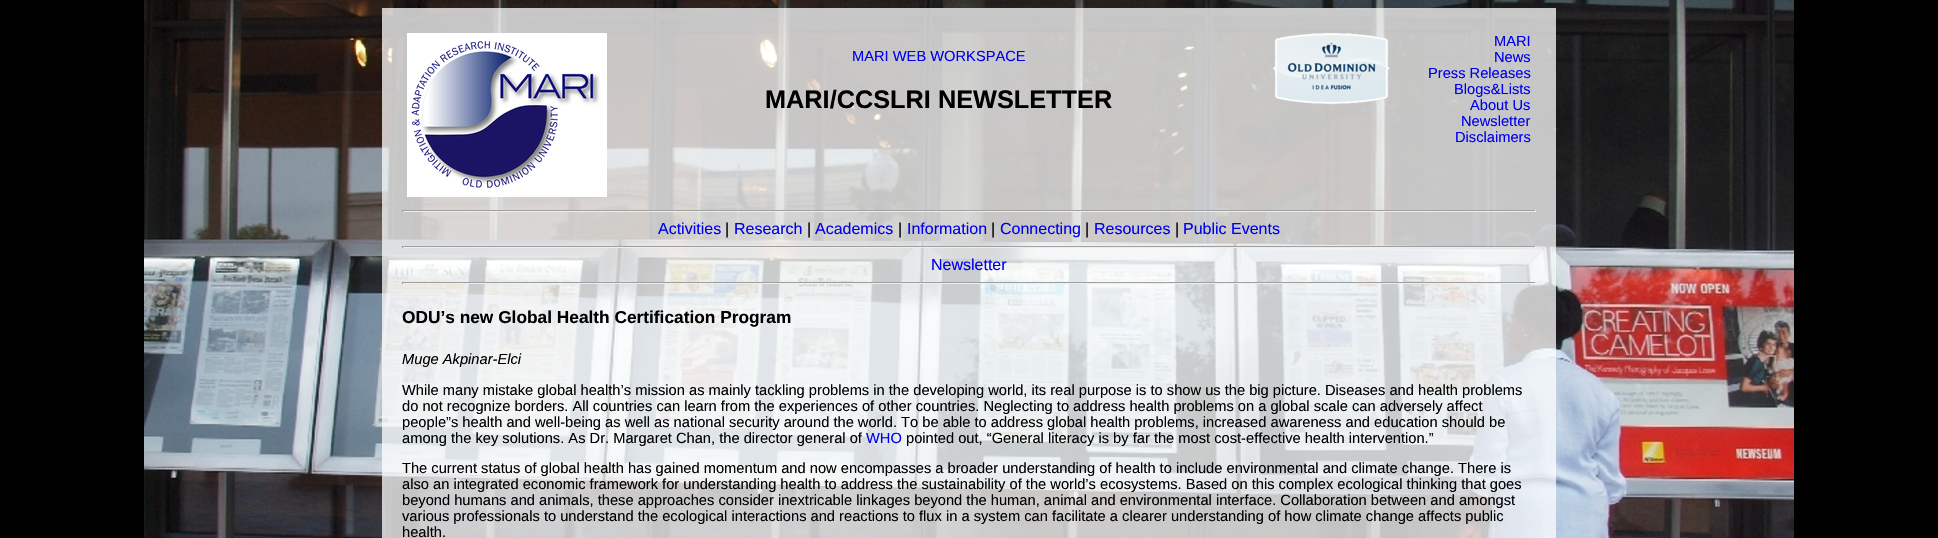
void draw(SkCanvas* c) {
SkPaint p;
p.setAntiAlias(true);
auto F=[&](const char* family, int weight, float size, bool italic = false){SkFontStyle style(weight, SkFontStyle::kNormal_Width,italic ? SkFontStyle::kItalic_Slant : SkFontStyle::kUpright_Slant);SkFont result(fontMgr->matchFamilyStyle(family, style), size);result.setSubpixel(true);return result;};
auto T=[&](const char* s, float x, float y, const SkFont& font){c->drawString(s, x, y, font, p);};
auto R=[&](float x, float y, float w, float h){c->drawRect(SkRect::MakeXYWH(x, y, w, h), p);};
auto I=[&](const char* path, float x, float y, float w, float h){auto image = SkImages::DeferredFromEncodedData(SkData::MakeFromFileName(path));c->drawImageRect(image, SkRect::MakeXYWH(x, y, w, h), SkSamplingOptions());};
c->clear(0xff000000);
I("1.png",144,0,1650,538);
p.setColor(0xbfffffff);
R(382,8,1174,530);
I("2.png",407,33,200,164);
auto f1 = F("Liberation Sans",400,14.67);
p.setColor(0xff0000ee);
T("MARI WEB WORKSPACE",852,61,f1);
auto f2 = F("Liberation Sans",700,25.3);
p.setColor(0xff000000);
T("MARI/CCSLRI NEWSLETTER",765,108,f2);
I("3.png",1272,33,118,72);
p.setColor(0xff0000ee);
T("MARI",1494,46,f1);
T("News",1494,62,f1);
T("Press Releases",1428,78,f1);
T("Blogs&Lists",1454,94,f1);
T("About Us",1470,110,f1);
T("Newsletter",1461,126,f1);
T("Disclaimers",1455,142,f1);
p.setColor(0xff9f9f9f);
R(402,210,1134,1);
p.setColor(0xffeeeeee);
R(1535,210,1,2);
R(402,211,1134,1);
p.setColor(0xff9f9f9f);
R(402,210,1,2);
auto f3 = F("Liberation Sans",400,16);
p.setColor(0xff0000ee);
T("Activities",658,234,f3);
p.setColor(0xff000000);
T("|",725,234,f3);
p.setColor(0xff0000ee);
T("Research",734,234,f3);
p.setColor(0xff000000);
T("|",807,234,f3);
p.setColor(0xff0000ee);
T("Academics",815,234,f3);
p.setColor(0xff000000);
T("|",898,234,f3);
p.setColor(0xff0000ee);
T("Information",907,234,f3);
p.setColor(0xff000000);
T("|",991,234,f3);
p.setColor(0xff0000ee);
T("Connecting",1000,234,f3);
p.setColor(0xff000000);
T("|",1085,234,f3);
p.setColor(0xff0000ee);
T("Resources",1094,234,f3);
p.setColor(0xff000000);
T("|",1175,234,f3);
p.setColor(0xff0000ee);
T("Public Events",1183,234,f3);
p.setColor(0xff9f9f9f);
R(402,246,1134,1);
p.setColor(0xffeeeeee);
R(1535,246,1,2);
R(402,247,1134,1);
p.setColor(0xff9f9f9f);
R(402,246,1,2);
p.setColor(0xff0000ee);
T("Newsletter",931,270,f3);
p.setColor(0xff9f9f9f);
R(402,282,1134,1);
p.setColor(0xffeeeeee);
R(1535,282,1,2);
R(402,283,1134,1);
p.setColor(0xff9f9f9f);
R(402,282,1,2);
auto f4 = F("Liberation Sans",700,17.3);
p.setColor(0xff000000);
T("ODU’s new Global Health Certification Program",402,323,f4);
auto f5 = F("Liberation Sans",400,14.67,true);
T("Muge Akpinar-Elci",402,364,f5);
T("While many mistake global health’s mission as mainly tackling problems in the developing world, its real purpose is to show us the big picture. Diseases and health problems",402,395,f1);
T("do not recognize borders. All countries can learn from the experiences of other countries. Neglecting to address health problems on a global scale can adversely affect",402,411,f1);
T("people”s health and well-being as well as national security around the world. To be able to address global health problems, increased awareness and education should be",402,427,f1);
T("among the key solutions. As Dr. Margaret Chan, the director general of",402,443,f1);
p.setColor(0xff0000ee);
T("WHO",866,443,f1);
p.setColor(0xff000000);
T("pointed out, “General literacy is by far the most cost-effective health intervention.”",906,443,f1);
T("The current status of global health has gained momentum and now encompasses a broader understanding of health to include environmental and climate change. There is",402,473,f1);
T("also an integrated economic framework for understanding health to address the sustainability of the world’s ecosystems. Based on this complex ecological thinking that goes",402,489,f1);
T("beyond humans and animals, these approaches consider inextricable linkages beyond the human, animal and environmental interface. Collaboration between and amongst",402,505,f1);
T("various professionals to understand the ecological interactions and reactions to flux in a system can facilitate a clearer understanding of how climate change affects public",402,521,f1);
T("health.",402,537,f1);
}
